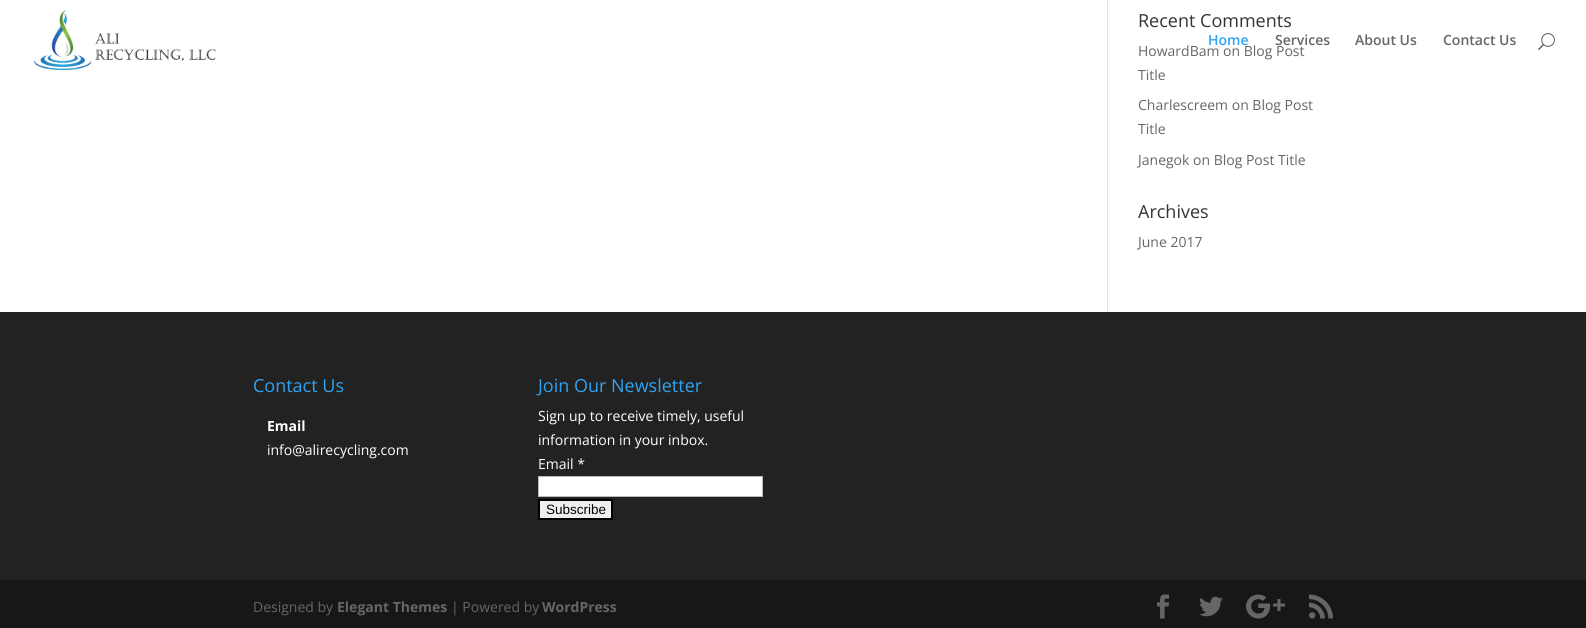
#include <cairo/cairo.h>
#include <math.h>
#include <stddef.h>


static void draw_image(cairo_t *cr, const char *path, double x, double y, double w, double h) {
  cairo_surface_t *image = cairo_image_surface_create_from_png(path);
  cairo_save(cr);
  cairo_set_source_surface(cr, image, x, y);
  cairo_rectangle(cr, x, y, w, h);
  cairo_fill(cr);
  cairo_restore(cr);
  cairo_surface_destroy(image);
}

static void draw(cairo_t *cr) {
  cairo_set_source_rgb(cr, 1, 1, 1);
  cairo_paint(cr);
  cairo_set_source_rgb(cr, 226 / 255.0, 226 / 255.0, 226 / 255.0);
  cairo_rectangle(cr, 1107, 0, 1, 312);
  cairo_fill(cr);
  cairo_set_source_rgb(cr, 34 / 255.0, 34 / 255.0, 34 / 255.0);
  cairo_rectangle(cr, 0, 312, 1586, 268);
  cairo_fill(cr);
  cairo_set_source_rgb(cr, 1, 1, 1);
  cairo_rectangle(cr, 538.5, 476.5, 224, 20);
  cairo_fill_preserve(cr);
  cairo_set_source_rgb(cr, 187 / 255.0, 187 / 255.0, 187 / 255.0);
  cairo_set_line_width(cr, 1);
  cairo_stroke(cr);
  cairo_set_source_rgb(cr, 239 / 255.0, 239 / 255.0, 239 / 255.0);
  cairo_rectangle(cr, 539, 500, 73, 19);
  cairo_fill_preserve(cr);
  cairo_set_source_rgb(cr, 0, 0, 0);
  cairo_set_line_width(cr, 2);
  cairo_stroke(cr);
  cairo_set_source_rgb(cr, 23 / 255.0, 23 / 255.0, 23 / 255.0);
  cairo_rectangle(cr, 0, 580, 1586, 48);
  cairo_fill(cr);
  draw_image(cr, "images/1.png", 1157, 594, 12, 25);
  draw_image(cr, "images/2.png", 1199, 596, 24, 21);
  draw_image(cr, "images/3.png", 1246, 594, 39, 25);
  draw_image(cr, "images/4.png", 1309, 594, 24, 25);
  draw_image(cr, "images/5.png", 34, 10, 182, 60);
  draw_image(cr, "images/6.png", 1538, 33, 17, 18);
  cairo_select_font_face(cr, "Open Sans", CAIRO_FONT_SLANT_NORMAL, CAIRO_FONT_WEIGHT_NORMAL);
  cairo_set_font_size(cr, 18);
  cairo_set_source_rgb(cr, 51 / 255.0, 51 / 255.0, 51 / 255.0);
  cairo_move_to(cr, 1138, 27);
  cairo_show_text(cr, "Recent Comments");
  cairo_set_font_size(cr, 14);
  cairo_set_source_rgb(cr, 102 / 255.0, 102 / 255.0, 102 / 255.0);
  cairo_move_to(cr, 1138, 56);
  cairo_show_text(cr, "HowardBam on Blog Post");
  cairo_move_to(cr, 1138, 80);
  cairo_show_text(cr, "Title");
  cairo_move_to(cr, 1138, 110);
  cairo_show_text(cr, "Charlescreem on Blog Post");
  cairo_move_to(cr, 1138, 134);
  cairo_show_text(cr, "Title");
  cairo_move_to(cr, 1138, 165);
  cairo_show_text(cr, "Janegok on Blog Post Title");
  cairo_set_font_size(cr, 18);
  cairo_set_source_rgb(cr, 51 / 255.0, 51 / 255.0, 51 / 255.0);
  cairo_move_to(cr, 1138, 218);
  cairo_show_text(cr, "Archives");
  cairo_set_font_size(cr, 14);
  cairo_set_source_rgb(cr, 102 / 255.0, 102 / 255.0, 102 / 255.0);
  cairo_move_to(cr, 1138, 247);
  cairo_show_text(cr, "June 2017");
  cairo_set_font_size(cr, 18);
  cairo_set_source_rgb(cr, 46 / 255.0, 163 / 255.0, 242 / 255.0);
  cairo_move_to(cr, 253, 392);
  cairo_show_text(cr, "Contact Us");
  cairo_select_font_face(cr, "Open Sans", CAIRO_FONT_SLANT_NORMAL, CAIRO_FONT_WEIGHT_BOLD);
  cairo_set_font_size(cr, 14);
  cairo_set_source_rgb(cr, 1, 1, 1);
  cairo_move_to(cr, 267, 431);
  cairo_show_text(cr, "Email");
  cairo_select_font_face(cr, "Open Sans", CAIRO_FONT_SLANT_NORMAL, CAIRO_FONT_WEIGHT_NORMAL);
  cairo_move_to(cr, 267, 455);
  cairo_show_text(cr, "info@alirecycling.com");
  cairo_set_font_size(cr, 18);
  cairo_set_source_rgb(cr, 46 / 255.0, 163 / 255.0, 242 / 255.0);
  cairo_move_to(cr, 538, 392);
  cairo_show_text(cr, "Join Our Newsletter");
  cairo_set_font_size(cr, 14);
  cairo_set_source_rgb(cr, 1, 1, 1);
  cairo_move_to(cr, 538, 421);
  cairo_show_text(cr, "Sign up to receive timely, useful");
  cairo_move_to(cr, 538, 445);
  cairo_show_text(cr, "information in your inbox.");
  cairo_move_to(cr, 538, 469);
  cairo_show_text(cr, "Email *");
  cairo_select_font_face(cr, "Liberation Sans", CAIRO_FONT_SLANT_NORMAL, CAIRO_FONT_WEIGHT_NORMAL);
  cairo_set_font_size(cr, 13.5);
  cairo_set_source_rgb(cr, 0, 0, 0);
  cairo_move_to(cr, 546, 514);
  cairo_show_text(cr, "Subscribe");
  cairo_select_font_face(cr, "Open Sans", CAIRO_FONT_SLANT_NORMAL, CAIRO_FONT_WEIGHT_NORMAL);
  cairo_set_font_size(cr, 14);
  cairo_set_source_rgb(cr, 102 / 255.0, 102 / 255.0, 102 / 255.0);
  cairo_move_to(cr, 253, 612);
  cairo_show_text(cr, "Designed by");
  cairo_select_font_face(cr, "Open Sans", CAIRO_FONT_SLANT_NORMAL, CAIRO_FONT_WEIGHT_BOLD);
  cairo_move_to(cr, 337, 612);
  cairo_show_text(cr, "Elegant Themes");
  cairo_select_font_face(cr, "Open Sans", CAIRO_FONT_SLANT_NORMAL, CAIRO_FONT_WEIGHT_NORMAL);
  cairo_move_to(cr, 451, 612);
  cairo_show_text(cr, "| Powered by");
  cairo_select_font_face(cr, "Open Sans", CAIRO_FONT_SLANT_NORMAL, CAIRO_FONT_WEIGHT_BOLD);
  cairo_move_to(cr, 542, 612);
  cairo_show_text(cr, "WordPress");
  cairo_select_font_face(cr, "Open Sans SemiBold", CAIRO_FONT_SLANT_NORMAL, CAIRO_FONT_WEIGHT_NORMAL);
  cairo_set_source_rgb(cr, 46 / 255.0, 163 / 255.0, 242 / 255.0);
  cairo_move_to(cr, 1208, 45);
  cairo_show_text(cr, "Home");
  cairo_set_source_rgb(cr, 102 / 255.0, 102 / 255.0, 102 / 255.0);
  cairo_move_to(cr, 1275, 45);
  cairo_show_text(cr, "Services");
  cairo_move_to(cr, 1355, 45);
  cairo_show_text(cr, "About Us");
  cairo_move_to(cr, 1443, 45);
  cairo_show_text(cr, "Contact Us");
}

int main(void) {
  cairo_surface_t *surface = cairo_image_surface_create(CAIRO_FORMAT_RGB24, 1586, 628);
  cairo_t *cr = cairo_create(surface);
  cairo_font_options_t *options = cairo_font_options_create();
  cairo_font_options_set_hint_metrics(options, CAIRO_HINT_METRICS_OFF);
  cairo_font_options_set_hint_style(options, CAIRO_HINT_STYLE_NONE);
  cairo_set_font_options(cr, options);
  cairo_set_miter_limit(cr, 4);
  draw(cr);
  cairo_surface_write_to_png(surface, "out.png");
  cairo_font_options_destroy(options);
  cairo_destroy(cr);
  cairo_surface_destroy(surface);
  return 0;
}
